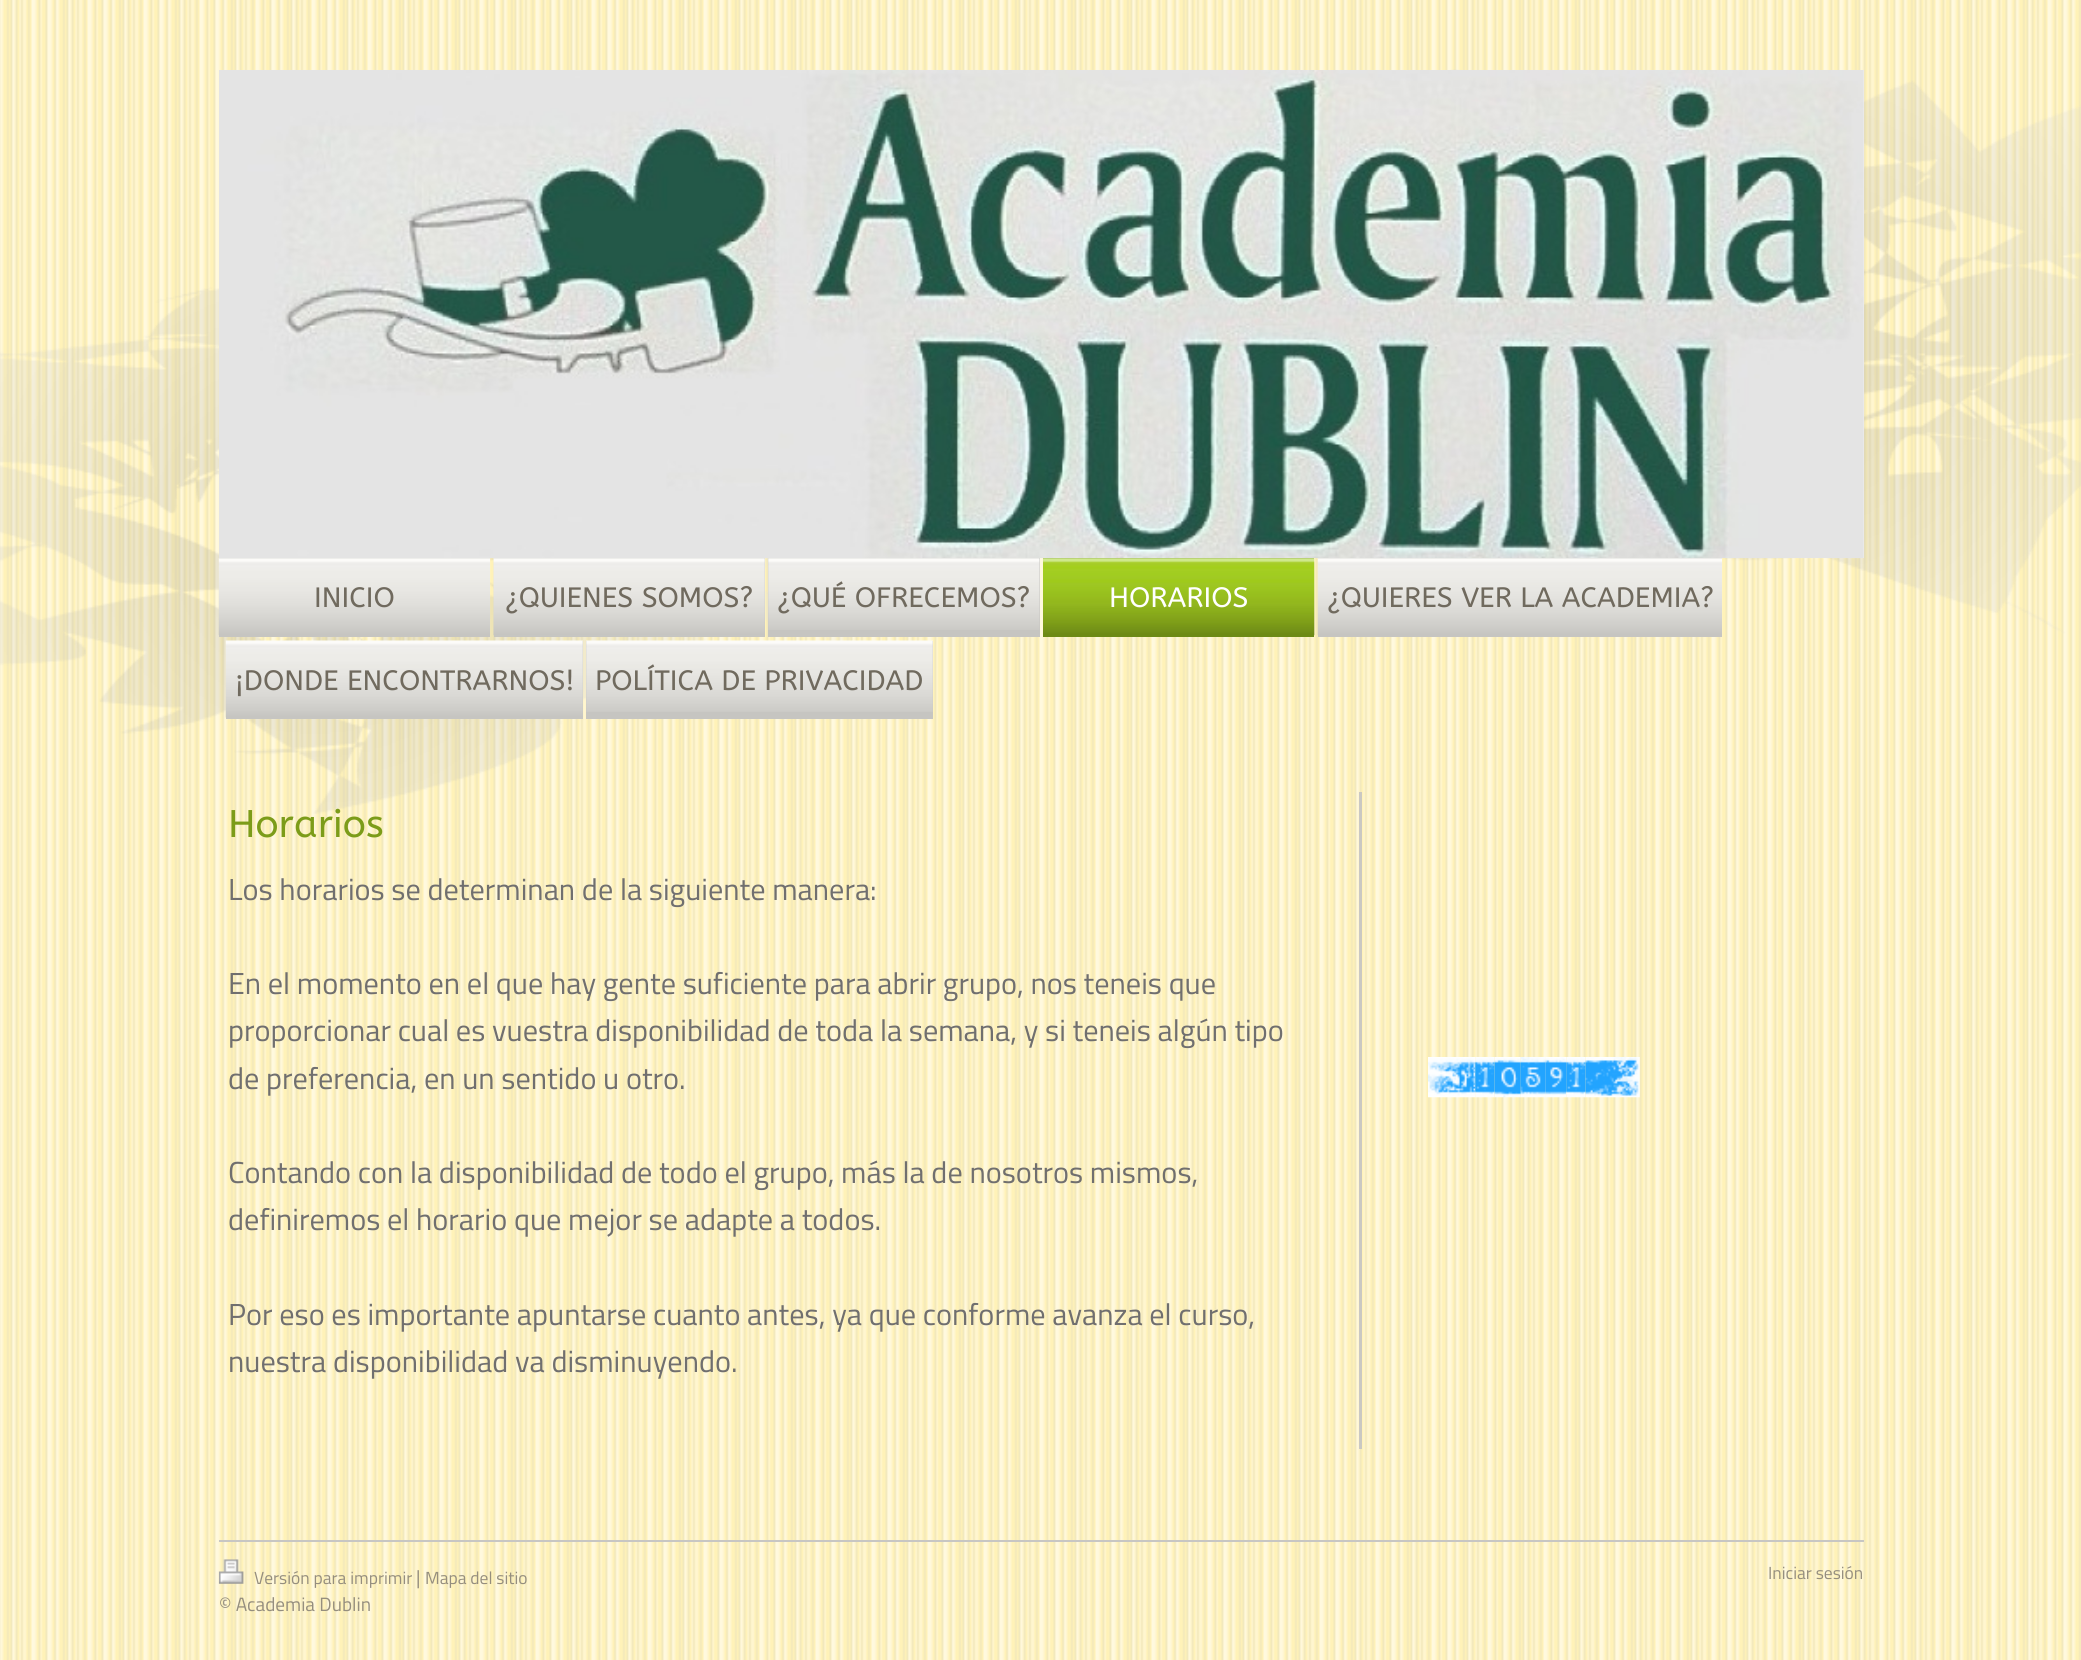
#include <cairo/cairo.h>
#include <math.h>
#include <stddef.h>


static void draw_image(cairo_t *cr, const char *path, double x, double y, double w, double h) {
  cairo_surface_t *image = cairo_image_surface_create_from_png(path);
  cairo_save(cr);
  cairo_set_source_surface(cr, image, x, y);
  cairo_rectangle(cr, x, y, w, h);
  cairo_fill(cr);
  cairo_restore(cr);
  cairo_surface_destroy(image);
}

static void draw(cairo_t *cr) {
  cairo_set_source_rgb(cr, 1, 1, 1);
  cairo_paint(cr);
  draw_image(cr, "images/1.png", 0, 0, 2081, 1660);
  draw_image(cr, "images/2.png", 0, 69, 2081, 745);
  cairo_set_source_rgb(cr, 238 / 255.0, 238 / 255.0, 238 / 255.0);
  cairo_rectangle(cr, 1863, 70, 1, 488);
  cairo_fill(cr);
  cairo_set_source_rgb(cr, 198 / 255.0, 197 / 255.0, 193 / 255.0);
  cairo_rectangle(cr, 219, 558, 271, 79);
  cairo_fill(cr);
  draw_image(cr, "images/4.png", 218, 558, 272, 77);
  cairo_rectangle(cr, 494, 558, 271, 79);
  cairo_fill(cr);
  draw_image(cr, "images/5.png", 493, 558, 272, 78);
  cairo_rectangle(cr, 768, 558, 272, 79);
  cairo_fill(cr);
  draw_image(cr, "images/6.png", 768, 558, 272, 72);
  draw_image(cr, "images/7.png", 1314, 558, 1, 77);
  cairo_set_source_rgb(cr, 109 / 255.0, 138 / 255.0, 22 / 255.0);
  cairo_rectangle(cr, 1043, 558, 271, 79);
  cairo_fill(cr);
  draw_image(cr, "images/8.png", 1043, 558, 272, 78);
  cairo_set_source_rgb(cr, 198 / 255.0, 197 / 255.0, 193 / 255.0);
  cairo_rectangle(cr, 1318, 558, 404, 79);
  cairo_fill(cr);
  draw_image(cr, "images/9.png", 1317, 558, 405, 77);
  draw_image(cr, "images/3.png", 219, 70, 1645, 489);
  cairo_rectangle(cr, 226, 641, 357, 78);
  cairo_fill(cr);
  draw_image(cr, "images/10.png", 225, 640, 358, 78);
  cairo_rectangle(cr, 586, 641, 347, 78);
  cairo_fill(cr);
  draw_image(cr, "images/11.png", 586, 640, 347, 72);
  cairo_set_source_rgba(cr, 199 / 255.0, 198 / 255.0, 195 / 255.0, 0.93);
  cairo_rectangle(cr, 1359, 792, 3, 657);
  cairo_fill(cr);
  draw_image(cr, "images/12.png", 1428, 1057, 48, 41);
  draw_image(cr, "images/13.png", 1475, 1057, 20, 41);
  draw_image(cr, "images/14.png", 1494, 1057, 27, 41);
  draw_image(cr, "images/15.png", 1520, 1057, 26, 41);
  draw_image(cr, "images/16.png", 1545, 1057, 22, 41);
  draw_image(cr, "images/17.png", 1566, 1057, 20, 41);
  draw_image(cr, "images/18.png", 1585, 1057, 55, 41);
  cairo_set_source_rgb(cr, 199 / 255.0, 198 / 255.0, 195 / 255.0);
  cairo_rectangle(cr, 219, 1540, 1645, 2);
  cairo_fill(cr);
  draw_image(cr, "images/19.png", 218, 1559, 26, 25);
  cairo_select_font_face(cr, "ABeeZee", CAIRO_FONT_SLANT_NORMAL, CAIRO_FONT_WEIGHT_NORMAL);
  cairo_set_font_size(cr, 28);
  cairo_set_source_rgb(cr, 112 / 255.0, 106 / 255.0, 94 / 255.0);
  cairo_move_to(cr, 314, 607);
  cairo_show_text(cr, "INICIO");
  cairo_move_to(cr, 505, 607);
  cairo_show_text(cr, "¿QUIENES SOMOS?");
  cairo_move_to(cr, 777, 607);
  cairo_show_text(cr, "¿QUÉ OFRECEMOS?");
  cairo_set_source_rgb(cr, 1, 1, 1);
  cairo_move_to(cr, 1109, 607);
  cairo_show_text(cr, "HORARIOS");
  cairo_set_source_rgb(cr, 112 / 255.0, 106 / 255.0, 94 / 255.0);
  cairo_move_to(cr, 1327, 607);
  cairo_show_text(cr, "¿QUIERES VER LA ACADEMIA?");
  cairo_move_to(cr, 235, 690);
  cairo_show_text(cr, "¡DONDE ENCONTRARNOS!");
  cairo_move_to(cr, 595, 690);
  cairo_show_text(cr, "POLÍTICA DE PRIVACIDAD");
  cairo_set_font_size(cr, 38.5);
  cairo_set_source_rgb(cr, 124 / 255.0, 156 / 255.0, 25 / 255.0);
  cairo_move_to(cr, 228, 837);
  cairo_show_text(cr, "Horarios");
  cairo_select_font_face(cr, "Titillium Web", CAIRO_FONT_SLANT_NORMAL, CAIRO_FONT_WEIGHT_NORMAL);
  cairo_set_font_size(cr, 30.35);
  cairo_set_source_rgb(cr, 112 / 255.0, 111 / 255.0, 111 / 255.0);
  cairo_move_to(cr, 228, 900);
  cairo_show_text(cr, "Los horarios se determinan de la siguiente manera:");
  cairo_move_to(cr, 228, 994);
  cairo_show_text(cr, "En el momento en el que hay gente suficiente para abrir grupo, nos teneis que");
  cairo_move_to(cr, 228, 1041);
  cairo_show_text(cr, "proporcionar cual es vuestra disponibilidad de toda la semana, y si teneis algún tipo");
  cairo_move_to(cr, 228, 1089);
  cairo_show_text(cr, "de preferencia, en un sentido u otro.");
  cairo_move_to(cr, 228, 1183);
  cairo_show_text(cr, "Contando con la disponibilidad de todo el grupo, más la de nosotros mismos,");
  cairo_move_to(cr, 228, 1230);
  cairo_show_text(cr, "definiremos el horario que mejor se adapte a todos.");
  cairo_move_to(cr, 228, 1325);
  cairo_show_text(cr, "Por eso es importante apuntarse cuanto antes, ya que conforme avanza el curso,");
  cairo_move_to(cr, 228, 1372);
  cairo_show_text(cr, "nuestra disponibilidad va disminuyendo.");
  cairo_set_font_size(cr, 17.5);
  cairo_set_source_rgb(cr, 149 / 255.0, 142 / 255.0, 126 / 255.0);
  cairo_move_to(cr, 254, 1584);
  cairo_show_text(cr, "Versión para imprimir");
  cairo_set_font_size(cr, 19.25);
  cairo_move_to(cr, 416, 1584);
  cairo_show_text(cr, "|");
  cairo_set_font_size(cr, 17.5);
  cairo_move_to(cr, 425, 1584);
  cairo_show_text(cr, "Mapa del sitio");
  cairo_set_font_size(cr, 19.25);
  cairo_move_to(cr, 219, 1611);
  cairo_show_text(cr, "© Academia Dublin");
  cairo_set_font_size(cr, 17.5);
  cairo_move_to(cr, 1768, 1579);
  cairo_show_text(cr, "Iniciar sesión");
}

int main(void) {
  cairo_surface_t *surface = cairo_image_surface_create(CAIRO_FORMAT_RGB24, 2081, 1660);
  cairo_t *cr = cairo_create(surface);
  cairo_font_options_t *options = cairo_font_options_create();
  cairo_font_options_set_hint_metrics(options, CAIRO_HINT_METRICS_OFF);
  cairo_font_options_set_hint_style(options, CAIRO_HINT_STYLE_NONE);
  cairo_set_font_options(cr, options);
  cairo_set_miter_limit(cr, 4);
  draw(cr);
  cairo_surface_write_to_png(surface, "out.png");
  cairo_font_options_destroy(options);
  cairo_destroy(cr);
  cairo_surface_destroy(surface);
  return 0;
}
